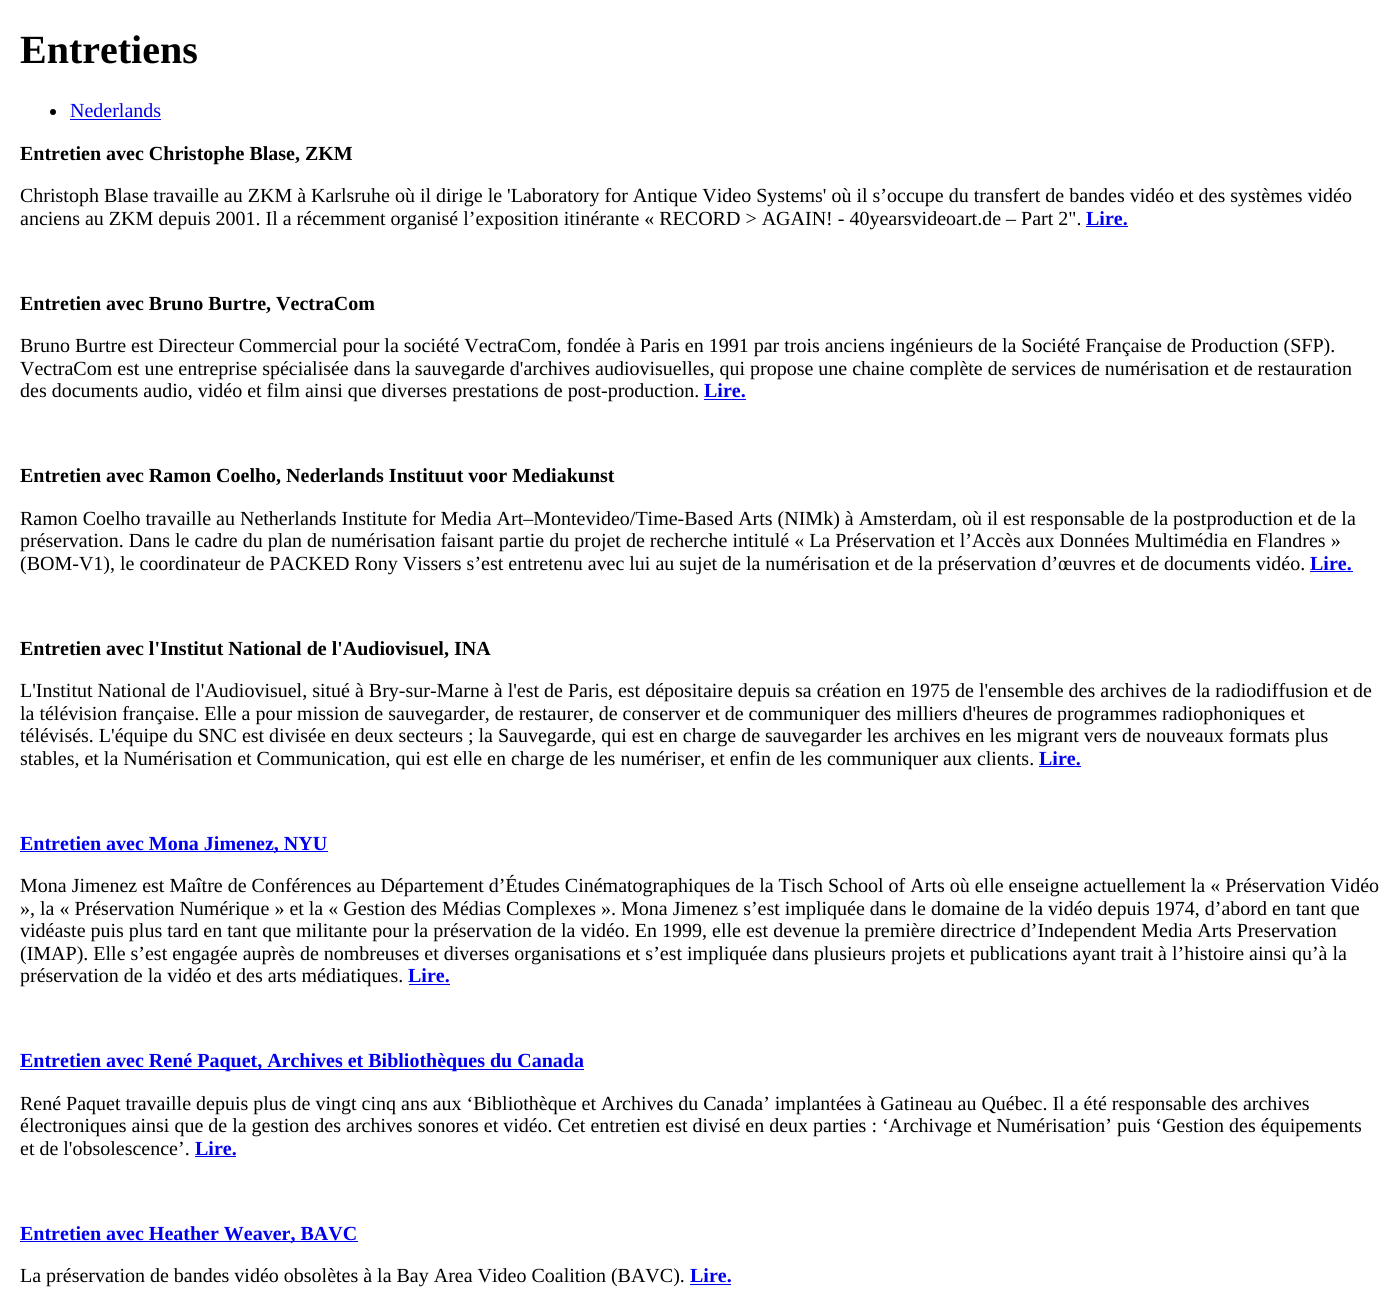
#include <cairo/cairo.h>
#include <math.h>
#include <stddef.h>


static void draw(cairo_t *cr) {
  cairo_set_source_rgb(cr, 1, 1, 1);
  cairo_paint(cr);
  cairo_set_source_rgb(cr, 0, 0, 0);
  cairo_arc(cr, 53, 112, 3, 0, 2 * M_PI);
  cairo_fill(cr);
  cairo_set_source_rgb(cr, 0, 0, 238 / 255.0);
  cairo_rectangle(cr, 70, 119, 91, 1);
  cairo_fill(cr);
  cairo_rectangle(cr, 1086, 226, 42, 1);
  cairo_fill(cr);
  cairo_rectangle(cr, 704, 399, 42, 1);
  cairo_fill(cr);
  cairo_rectangle(cr, 1310, 571, 43, 1);
  cairo_fill(cr);
  cairo_rectangle(cr, 1039, 766, 42, 1);
  cairo_fill(cr);
  cairo_rectangle(cr, 20, 851, 308, 1);
  cairo_fill(cr);
  cairo_rectangle(cr, 409, 984, 41, 1);
  cairo_fill(cr);
  cairo_rectangle(cr, 20, 1069, 564, 1);
  cairo_fill(cr);
  cairo_rectangle(cr, 195, 1156, 41, 1);
  cairo_fill(cr);
  cairo_rectangle(cr, 20, 1241, 338, 1);
  cairo_fill(cr);
  cairo_rectangle(cr, 690, 1284, 41, 1);
  cairo_fill(cr);
  cairo_select_font_face(cr, "Liberation Serif", CAIRO_FONT_SLANT_NORMAL, CAIRO_FONT_WEIGHT_BOLD);
  cairo_set_font_size(cr, 40);
  cairo_set_source_rgb(cr, 0, 0, 0);
  cairo_move_to(cr, 20, 63);
  cairo_show_text(cr, "Entretiens");
  cairo_select_font_face(cr, "Liberation Serif", CAIRO_FONT_SLANT_NORMAL, CAIRO_FONT_WEIGHT_NORMAL);
  cairo_set_font_size(cr, 20);
  cairo_set_source_rgb(cr, 0, 0, 238 / 255.0);
  cairo_move_to(cr, 70, 117);
  cairo_show_text(cr, "Nederlands");
  cairo_select_font_face(cr, "Liberation Serif", CAIRO_FONT_SLANT_NORMAL, CAIRO_FONT_WEIGHT_BOLD);
  cairo_set_source_rgb(cr, 0, 0, 0);
  cairo_move_to(cr, 20, 160);
  cairo_show_text(cr, "Entretien avec Christophe Blase, ZKM");
  cairo_select_font_face(cr, "Liberation Serif", CAIRO_FONT_SLANT_NORMAL, CAIRO_FONT_WEIGHT_NORMAL);
  cairo_move_to(cr, 20, 202);
  cairo_show_text(cr, "Christoph Blase travaille au ZKM à Karlsruhe où il dirige le 'Laboratory for Antique Video Systems' où il s’occupe du transfert de bandes vidéo et des systèmes vidéo");
  cairo_move_to(cr, 20, 225);
  cairo_show_text(cr, "anciens au ZKM depuis 2001. Il a récemment organisé l’exposition itinérante « RECORD > AGAIN! - 40yearsvideoart.de – Part 2\".");
  cairo_select_font_face(cr, "Liberation Serif", CAIRO_FONT_SLANT_NORMAL, CAIRO_FONT_WEIGHT_BOLD);
  cairo_set_source_rgb(cr, 0, 0, 238 / 255.0);
  cairo_move_to(cr, 1086, 225);
  cairo_show_text(cr, "Lire.");
  cairo_set_source_rgb(cr, 0, 0, 0);
  cairo_move_to(cr, 20, 310);
  cairo_show_text(cr, "Entretien avec Bruno Burtre, VectraCom");
  cairo_select_font_face(cr, "Liberation Serif", CAIRO_FONT_SLANT_NORMAL, CAIRO_FONT_WEIGHT_NORMAL);
  cairo_move_to(cr, 20, 352);
  cairo_show_text(cr, "Bruno Burtre est Directeur Commercial pour la société VectraCom, fondée à Paris en 1991 par trois anciens ingénieurs de la Société Française de Production (SFP).");
  cairo_move_to(cr, 20, 375);
  cairo_show_text(cr, "VectraCom est une entreprise spécialisée dans la sauvegarde d'archives audiovisuelles, qui propose une chaine complète de services de numérisation et de restauration");
  cairo_move_to(cr, 20, 397);
  cairo_show_text(cr, "des documents audio, vidéo et film ainsi que diverses prestations de post-production.");
  cairo_select_font_face(cr, "Liberation Serif", CAIRO_FONT_SLANT_NORMAL, CAIRO_FONT_WEIGHT_BOLD);
  cairo_set_source_rgb(cr, 0, 0, 238 / 255.0);
  cairo_move_to(cr, 704, 397);
  cairo_show_text(cr, "Lire.");
  cairo_set_source_rgb(cr, 0, 0, 0);
  cairo_move_to(cr, 20, 482);
  cairo_show_text(cr, "Entretien avec Ramon Coelho, Nederlands Instituut voor Mediakunst");
  cairo_select_font_face(cr, "Liberation Serif", CAIRO_FONT_SLANT_NORMAL, CAIRO_FONT_WEIGHT_NORMAL);
  cairo_move_to(cr, 20, 525);
  cairo_show_text(cr, "Ramon Coelho travaille au Netherlands Institute for Media Art–Montevideo/Time-Based Arts (NIMk) à Amsterdam, où il est responsable de la postproduction et de la");
  cairo_move_to(cr, 20, 547);
  cairo_show_text(cr, "préservation. Dans le cadre du plan de numérisation faisant partie du projet de recherche intitulé « La Préservation et l’Accès aux Données Multimédia en Flandres »");
  cairo_move_to(cr, 20, 570);
  cairo_show_text(cr, "(BOM-V1), le coordinateur de PACKED Rony Vissers s’est entretenu avec lui au sujet de la numérisation et de la préservation d’œuvres et de documents vidéo.");
  cairo_select_font_face(cr, "Liberation Serif", CAIRO_FONT_SLANT_NORMAL, CAIRO_FONT_WEIGHT_BOLD);
  cairo_set_source_rgb(cr, 0, 0, 238 / 255.0);
  cairo_move_to(cr, 1310, 570);
  cairo_show_text(cr, "Lire.");
  cairo_set_source_rgb(cr, 0, 0, 0);
  cairo_move_to(cr, 20, 655);
  cairo_show_text(cr, "Entretien avec l'Institut National de l'Audiovisuel, INA");
  cairo_select_font_face(cr, "Liberation Serif", CAIRO_FONT_SLANT_NORMAL, CAIRO_FONT_WEIGHT_NORMAL);
  cairo_move_to(cr, 20, 697);
  cairo_show_text(cr, "L'Institut National de l'Audiovisuel, situé à Bry-sur-Marne à l'est de Paris, est dépositaire depuis sa création en 1975 de l'ensemble des archives de la radiodiffusion et de");
  cairo_move_to(cr, 20, 720);
  cairo_show_text(cr, "la télévision française. Elle a pour mission de sauvegarder, de restaurer, de conserver et de communiquer des milliers d'heures de programmes radiophoniques et");
  cairo_move_to(cr, 20, 742);
  cairo_show_text(cr, "télévisés. L'équipe du SNC est divisée en deux secteurs ; la Sauvegarde, qui est en charge de sauvegarder les archives en les migrant vers de nouveaux formats plus");
  cairo_move_to(cr, 20, 765);
  cairo_show_text(cr, "stables, et la Numérisation et Communication, qui est elle en charge de les numériser, et enfin de les communiquer aux clients.");
  cairo_select_font_face(cr, "Liberation Serif", CAIRO_FONT_SLANT_NORMAL, CAIRO_FONT_WEIGHT_BOLD);
  cairo_set_source_rgb(cr, 0, 0, 238 / 255.0);
  cairo_move_to(cr, 1039, 765);
  cairo_show_text(cr, "Lire.");
  cairo_move_to(cr, 20, 850);
  cairo_show_text(cr, "Entretien avec Mona Jimenez, NYU");
  cairo_select_font_face(cr, "Liberation Serif", CAIRO_FONT_SLANT_NORMAL, CAIRO_FONT_WEIGHT_NORMAL);
  cairo_set_source_rgb(cr, 0, 0, 0);
  cairo_move_to(cr, 20, 892);
  cairo_show_text(cr, "Mona Jimenez est Maître de Conférences au Département d’Études Cinématographiques de la Tisch School of Arts où elle enseigne actuellement la « Préservation Vidéo");
  cairo_move_to(cr, 20, 915);
  cairo_show_text(cr, "», la « Préservation Numérique » et la « Gestion des Médias Complexes ». Mona Jimenez s’est impliquée dans le domaine de la vidéo depuis 1974, d’abord en tant que");
  cairo_move_to(cr, 20, 937);
  cairo_show_text(cr, "vidéaste puis plus tard en tant que militante pour la préservation de la vidéo. En 1999, elle est devenue la première directrice d’Independent Media Arts Preservation");
  cairo_move_to(cr, 20, 960);
  cairo_show_text(cr, "(IMAP). Elle s’est engagée auprès de nombreuses et diverses organisations et s’est impliquée dans plusieurs projets et publications ayant trait à l’histoire ainsi qu’à la");
  cairo_move_to(cr, 20, 982);
  cairo_show_text(cr, "préservation de la vidéo et des arts médiatiques.");
  cairo_select_font_face(cr, "Liberation Serif", CAIRO_FONT_SLANT_NORMAL, CAIRO_FONT_WEIGHT_BOLD);
  cairo_set_source_rgb(cr, 0, 0, 238 / 255.0);
  cairo_move_to(cr, 408, 982);
  cairo_show_text(cr, "Lire.");
  cairo_move_to(cr, 20, 1067);
  cairo_show_text(cr, "Entretien avec René Paquet, Archives et Bibliothèques du Canada");
  cairo_select_font_face(cr, "Liberation Serif", CAIRO_FONT_SLANT_NORMAL, CAIRO_FONT_WEIGHT_NORMAL);
  cairo_set_source_rgb(cr, 0, 0, 0);
  cairo_move_to(cr, 20, 1110);
  cairo_show_text(cr, "René Paquet travaille depuis plus de vingt cinq ans aux ‘Bibliothèque et Archives du Canada’ implantées à Gatineau au Québec. Il a été responsable des archives");
  cairo_move_to(cr, 20, 1132);
  cairo_show_text(cr, "électroniques ainsi que de la gestion des archives sonores et vidéo. Cet entretien est divisé en deux parties : ‘Archivage et Numérisation’ puis ‘Gestion des équipements");
  cairo_move_to(cr, 20, 1155);
  cairo_show_text(cr, "et de l'obsolescence’.");
  cairo_select_font_face(cr, "Liberation Serif", CAIRO_FONT_SLANT_NORMAL, CAIRO_FONT_WEIGHT_BOLD);
  cairo_set_source_rgb(cr, 0, 0, 238 / 255.0);
  cairo_move_to(cr, 195, 1155);
  cairo_show_text(cr, "Lire.");
  cairo_move_to(cr, 20, 1240);
  cairo_show_text(cr, "Entretien avec Heather Weaver, BAVC");
  cairo_select_font_face(cr, "Liberation Serif", CAIRO_FONT_SLANT_NORMAL, CAIRO_FONT_WEIGHT_NORMAL);
  cairo_set_source_rgb(cr, 0, 0, 0);
  cairo_move_to(cr, 20, 1282);
  cairo_show_text(cr, "La préservation de bandes vidéo obsolètes à la Bay Area Video Coalition (BAVC).");
  cairo_select_font_face(cr, "Liberation Serif", CAIRO_FONT_SLANT_NORMAL, CAIRO_FONT_WEIGHT_BOLD);
  cairo_set_source_rgb(cr, 0, 0, 238 / 255.0);
  cairo_move_to(cr, 690, 1282);
  cairo_show_text(cr, "Lire.");
}

int main(void) {
  cairo_surface_t *surface = cairo_image_surface_create(CAIRO_FORMAT_RGB24, 1400, 1309);
  cairo_t *cr = cairo_create(surface);
  cairo_font_options_t *options = cairo_font_options_create();
  cairo_font_options_set_hint_metrics(options, CAIRO_HINT_METRICS_OFF);
  cairo_font_options_set_hint_style(options, CAIRO_HINT_STYLE_NONE);
  cairo_set_font_options(cr, options);
  cairo_set_miter_limit(cr, 4);
  draw(cr);
  cairo_surface_write_to_png(surface, "out.png");
  cairo_font_options_destroy(options);
  cairo_destroy(cr);
  cairo_surface_destroy(surface);
  return 0;
}
